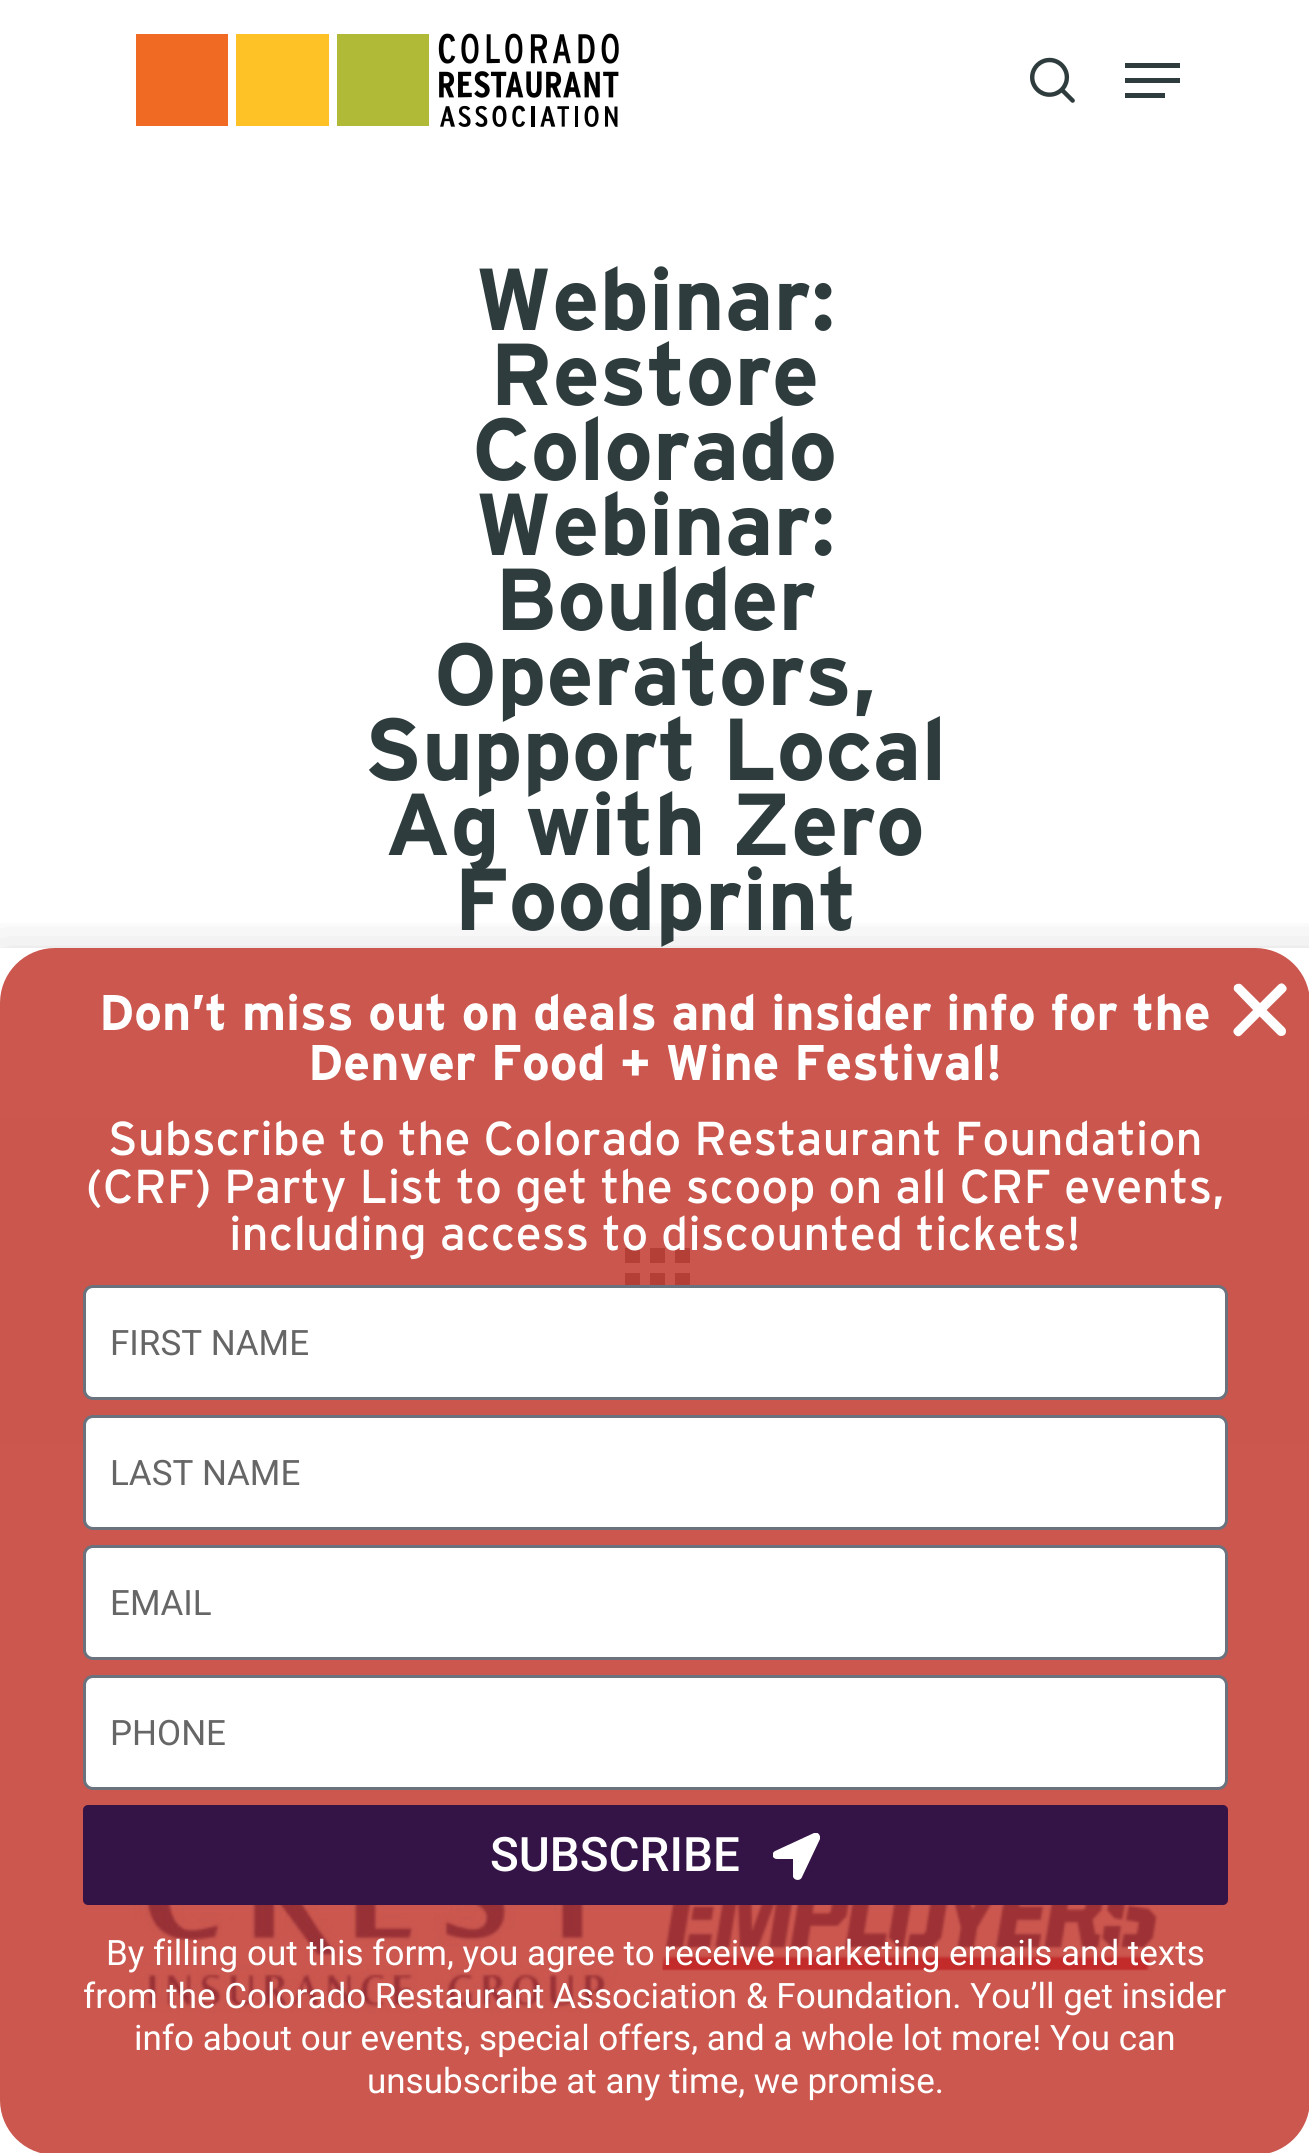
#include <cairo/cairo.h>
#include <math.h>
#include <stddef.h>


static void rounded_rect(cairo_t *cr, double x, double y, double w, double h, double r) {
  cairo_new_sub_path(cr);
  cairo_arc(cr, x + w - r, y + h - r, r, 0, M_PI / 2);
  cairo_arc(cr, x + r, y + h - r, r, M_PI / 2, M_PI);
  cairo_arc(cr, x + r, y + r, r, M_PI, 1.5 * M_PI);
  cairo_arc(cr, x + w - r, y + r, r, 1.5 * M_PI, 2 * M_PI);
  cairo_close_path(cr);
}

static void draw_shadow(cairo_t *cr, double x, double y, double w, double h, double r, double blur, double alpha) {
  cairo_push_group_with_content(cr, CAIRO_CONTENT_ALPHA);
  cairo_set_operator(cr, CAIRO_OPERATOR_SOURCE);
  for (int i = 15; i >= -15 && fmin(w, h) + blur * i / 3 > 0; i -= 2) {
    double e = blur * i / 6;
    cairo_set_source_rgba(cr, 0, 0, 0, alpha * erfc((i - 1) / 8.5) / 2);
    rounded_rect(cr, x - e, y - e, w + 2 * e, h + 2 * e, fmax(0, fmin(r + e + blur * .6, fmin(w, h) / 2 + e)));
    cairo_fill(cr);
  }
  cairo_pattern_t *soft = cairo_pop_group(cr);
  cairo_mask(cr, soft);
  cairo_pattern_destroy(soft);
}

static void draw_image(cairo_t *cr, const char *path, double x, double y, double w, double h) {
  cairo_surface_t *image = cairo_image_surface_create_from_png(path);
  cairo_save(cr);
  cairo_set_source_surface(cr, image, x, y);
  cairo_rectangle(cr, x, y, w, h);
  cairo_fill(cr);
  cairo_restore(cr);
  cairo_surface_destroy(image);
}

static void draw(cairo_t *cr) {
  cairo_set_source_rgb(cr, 1, 1, 1);
  cairo_paint(cr);
  draw_image(cr, "images/1.png", 136, 33, 483, 94);
  draw_image(cr, "images/2.png", 1030, 57, 45, 46);
  cairo_set_source_rgb(cr, 47 / 255.0, 60 / 255.0, 61 / 255.0);
  cairo_rectangle(cr, 1125, 63, 55, 5);
  cairo_fill(cr);
  cairo_rectangle(cr, 1125, 93, 40, 5);
  cairo_fill(cr);
  cairo_rectangle(cr, 1125, 78, 55, 5);
  cairo_fill(cr);
  cairo_set_source_rgb(cr, 248 / 255.0, 248 / 255.0, 248 / 255.0);
  cairo_rectangle(cr, 0, 1118, 1309, 325);
  cairo_fill(cr);
  cairo_set_source_rgb(cr, 136 / 255.0, 136 / 255.0, 136 / 255.0);
  cairo_rectangle(cr, 625, 1248, 15, 15);
  cairo_fill(cr);
  cairo_rectangle(cr, 650, 1248, 15, 15);
  cairo_fill(cr);
  cairo_rectangle(cr, 675, 1248, 15, 15);
  cairo_fill(cr);
  cairo_rectangle(cr, 675, 1273, 15, 12);
  cairo_fill(cr);
  cairo_rectangle(cr, 625, 1273, 15, 12);
  cairo_fill(cr);
  cairo_rectangle(cr, 650, 1273, 15, 12);
  cairo_fill(cr);
  draw_image(cr, "images/3.png", 134, 1905, 483, 109);
  draw_image(cr, "images/4.png", 662, 1905, 497, 66);
  cairo_save(cr);
  cairo_rectangle(cr, 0, 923, 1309, 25);
  cairo_clip(cr);
  cairo_set_source_rgb(cr, 0, 0, 0);
  draw_shadow(cr, -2, 960, 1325, 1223, 0, 29, 0.2);
  cairo_restore(cr);
  cairo_set_source_rgba(cr, 190 / 255.0, 45 / 255.0, 36 / 255.0, 0.8);
  rounded_rect(cr, 0, 948, 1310, 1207, 55);
  cairo_fill(cr);
  cairo_set_source_rgb(cr, 1, 1, 1);
  rounded_rect(cr, 84.5, 1286.5, 1142, 112, 8.5);
  cairo_fill_preserve(cr);
  cairo_set_source_rgb(cr, 105 / 255.0, 114 / 255.0, 125 / 255.0);
  cairo_set_line_width(cr, 3);
  cairo_stroke(cr);
  cairo_set_source_rgb(cr, 1, 1, 1);
  rounded_rect(cr, 84.5, 1416.5, 1142, 112, 8.5);
  cairo_fill_preserve(cr);
  cairo_set_source_rgb(cr, 105 / 255.0, 114 / 255.0, 125 / 255.0);
  cairo_stroke(cr);
  cairo_set_source_rgb(cr, 1, 1, 1);
  rounded_rect(cr, 84.5, 1546.5, 1142, 112, 8.5);
  cairo_fill_preserve(cr);
  cairo_set_source_rgb(cr, 105 / 255.0, 114 / 255.0, 125 / 255.0);
  cairo_stroke(cr);
  cairo_set_source_rgb(cr, 1, 1, 1);
  rounded_rect(cr, 84.5, 1676.5, 1142, 112, 8.5);
  cairo_fill_preserve(cr);
  cairo_set_source_rgb(cr, 105 / 255.0, 114 / 255.0, 125 / 255.0);
  cairo_stroke(cr);
  cairo_set_source_rgb(cr, 52 / 255.0, 19 / 255.0, 70 / 255.0);
  rounded_rect(cr, 83, 1805, 1145, 100, 5);
  cairo_fill(cr);
  cairo_save(cr);
  cairo_rectangle(cr, 773, 1833, 47, 47);
  cairo_clip(cr);
  cairo_set_source_rgb(cr, 1, 1, 1);
  cairo_new_path(cr);
  cairo_move_to(cr, 814, 1833);
  cairo_line_to(cr, 775, 1851);
  cairo_curve_to(cr, 771, 1853, 772, 1859, 777, 1859);
  cairo_line_to(cr, 793, 1859);
  cairo_line_to(cr, 793, 1876);
  cairo_curve_to(cr, 793, 1880, 800, 1882, 802, 1877);
  cairo_line_to(cr, 820, 1839);
  cairo_curve_to(cr, 821, 1835, 817, 1831, 814, 1833);
  cairo_close_path(cr);
  cairo_fill(cr);
  cairo_restore(cr);
  draw_image(cr, "images/5.png", 1233, 983, 54, 54);
  cairo_select_font_face(cr, "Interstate", CAIRO_FONT_SLANT_NORMAL, CAIRO_FONT_WEIGHT_BOLD);
  cairo_set_font_size(cr, 87.75);
  cairo_set_source_rgb(cr, 47 / 255.0, 60 / 255.0, 61 / 255.0);
  cairo_move_to(cr, 475, 330);
  cairo_show_text(cr, "Webinar:");
  cairo_move_to(cr, 490, 405);
  cairo_show_text(cr, "Restore");
  cairo_move_to(cr, 472, 480);
  cairo_show_text(cr, "Colorado");
  cairo_move_to(cr, 475, 555);
  cairo_show_text(cr, "Webinar:");
  cairo_move_to(cr, 495, 630);
  cairo_show_text(cr, "Boulder");
  cairo_move_to(cr, 434, 705);
  cairo_show_text(cr, "Operators,");
  cairo_move_to(cr, 364, 780);
  cairo_show_text(cr, "Support Local");
  cairo_move_to(cr, 385, 855);
  cairo_show_text(cr, "Ag with Zero");
  cairo_move_to(cr, 454, 930);
  cairo_show_text(cr, "Foodprint");
  cairo_set_font_size(cr, 50);
  cairo_set_source_rgb(cr, 1, 1, 1);
  cairo_move_to(cr, 99, 1030);
  cairo_show_text(cr, "Don’t miss out on deals and insider info for the");
  cairo_move_to(cr, 308, 1080);
  cairo_show_text(cr, "Denver Food + Wine Festival!");
  cairo_select_font_face(cr, "Interstate", CAIRO_FONT_SLANT_NORMAL, CAIRO_FONT_WEIGHT_NORMAL);
  cairo_set_font_size(cr, 47.5);
  cairo_move_to(cr, 108, 1155);
  cairo_show_text(cr, "Subscribe to the Colorado Restaurant Foundation");
  cairo_move_to(cr, 86, 1203);
  cairo_show_text(cr, "(CRF) Party List to get the scoop on all CRF events,");
  cairo_move_to(cr, 229, 1250);
  cairo_show_text(cr, "including access to discounted tickets!");
  cairo_select_font_face(cr, "Roboto", CAIRO_FONT_SLANT_NORMAL, CAIRO_FONT_WEIGHT_NORMAL);
  cairo_set_font_size(cr, 35);
  cairo_set_source_rgb(cr, 102 / 255.0, 102 / 255.0, 102 / 255.0);
  cairo_move_to(cr, 110, 1355);
  cairo_show_text(cr, "FIRST NAME");
  cairo_move_to(cr, 110, 1485);
  cairo_show_text(cr, "LAST NAME");
  cairo_move_to(cr, 110, 1615);
  cairo_show_text(cr, "EMAIL");
  cairo_move_to(cr, 110, 1745);
  cairo_show_text(cr, "PHONE");
  cairo_select_font_face(cr, "Roboto Medium", CAIRO_FONT_SLANT_NORMAL, CAIRO_FONT_WEIGHT_NORMAL);
  cairo_set_font_size(cr, 47.5);
  cairo_set_source_rgb(cr, 1, 1, 1);
  cairo_move_to(cr, 490, 1871);
  cairo_show_text(cr, "SUBSCRIBE");
  cairo_select_font_face(cr, "Roboto", CAIRO_FONT_SLANT_NORMAL, CAIRO_FONT_WEIGHT_NORMAL);
  cairo_set_font_size(cr, 35);
  cairo_move_to(cr, 106, 1965);
  cairo_show_text(cr, "By filling out this form, you agree to receive marketing emails and texts");
  cairo_move_to(cr, 83, 2008);
  cairo_show_text(cr, "from the Colorado Restaurant Association & Foundation. You’ll get insider");
  cairo_move_to(cr, 134, 2050);
  cairo_show_text(cr, "info about our events, special offers, and a whole lot more! You can");
  cairo_move_to(cr, 367, 2093);
  cairo_show_text(cr, "unsubscribe at any time, we promise.");
}

int main(void) {
  cairo_surface_t *surface = cairo_image_surface_create(CAIRO_FORMAT_RGB24, 1309, 2153);
  cairo_t *cr = cairo_create(surface);
  cairo_font_options_t *options = cairo_font_options_create();
  cairo_font_options_set_hint_metrics(options, CAIRO_HINT_METRICS_OFF);
  cairo_font_options_set_hint_style(options, CAIRO_HINT_STYLE_NONE);
  cairo_set_font_options(cr, options);
  cairo_set_miter_limit(cr, 4);
  draw(cr);
  cairo_surface_write_to_png(surface, "out.png");
  cairo_font_options_destroy(options);
  cairo_destroy(cr);
  cairo_surface_destroy(surface);
  return 0;
}
